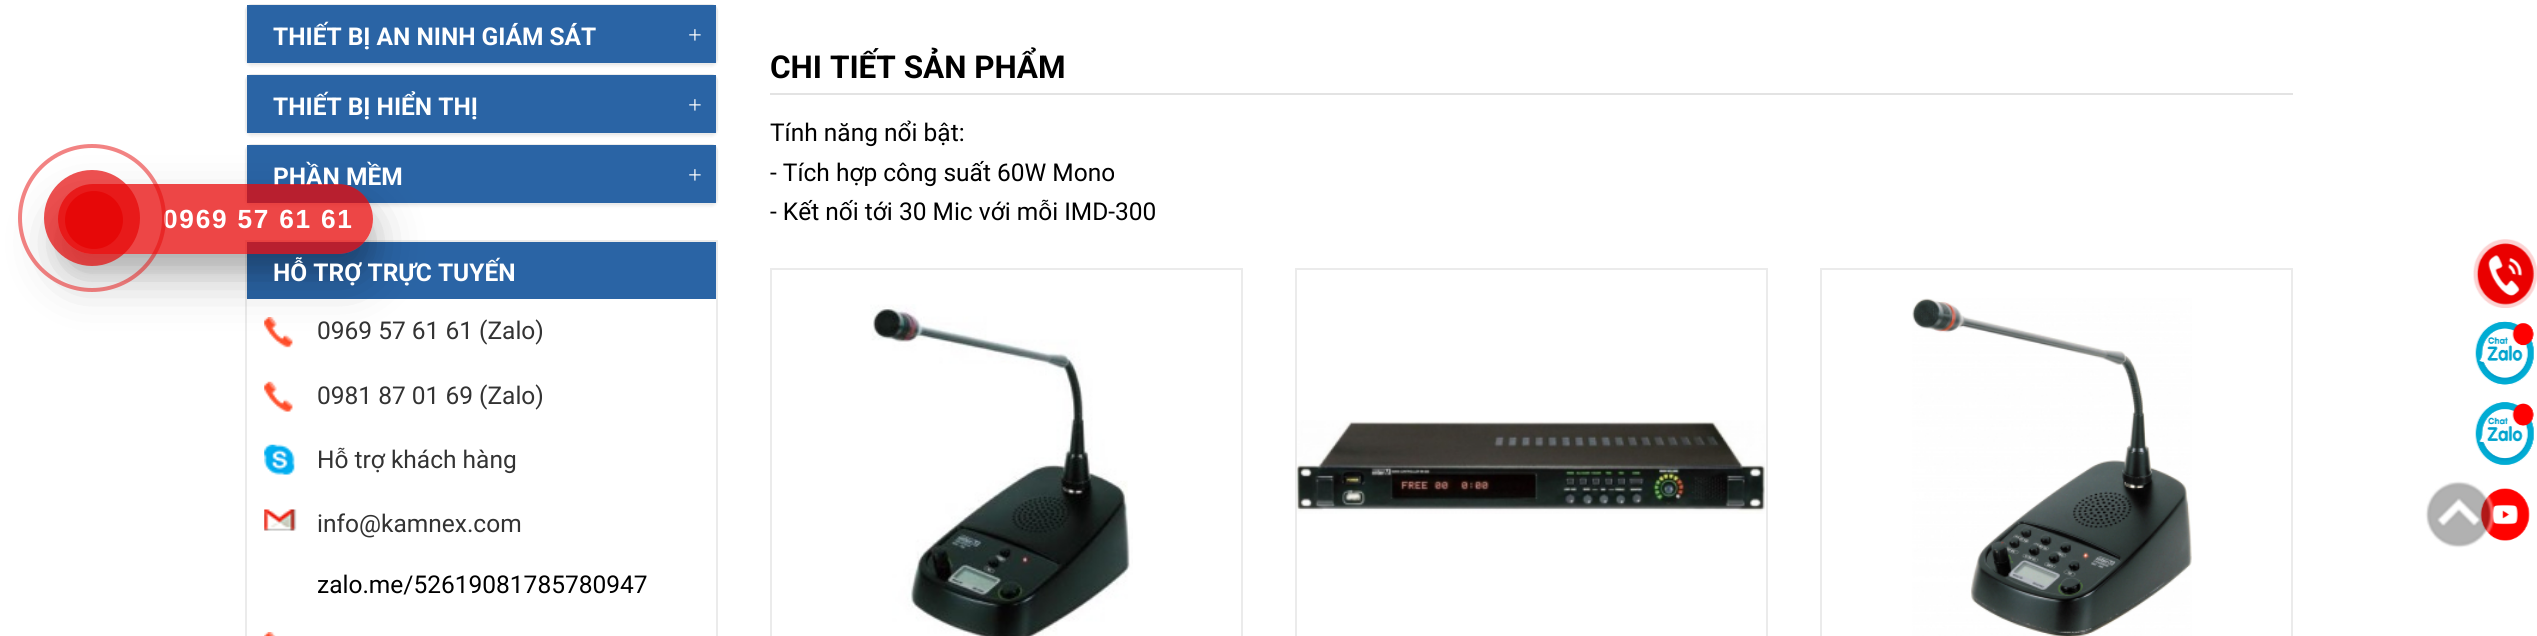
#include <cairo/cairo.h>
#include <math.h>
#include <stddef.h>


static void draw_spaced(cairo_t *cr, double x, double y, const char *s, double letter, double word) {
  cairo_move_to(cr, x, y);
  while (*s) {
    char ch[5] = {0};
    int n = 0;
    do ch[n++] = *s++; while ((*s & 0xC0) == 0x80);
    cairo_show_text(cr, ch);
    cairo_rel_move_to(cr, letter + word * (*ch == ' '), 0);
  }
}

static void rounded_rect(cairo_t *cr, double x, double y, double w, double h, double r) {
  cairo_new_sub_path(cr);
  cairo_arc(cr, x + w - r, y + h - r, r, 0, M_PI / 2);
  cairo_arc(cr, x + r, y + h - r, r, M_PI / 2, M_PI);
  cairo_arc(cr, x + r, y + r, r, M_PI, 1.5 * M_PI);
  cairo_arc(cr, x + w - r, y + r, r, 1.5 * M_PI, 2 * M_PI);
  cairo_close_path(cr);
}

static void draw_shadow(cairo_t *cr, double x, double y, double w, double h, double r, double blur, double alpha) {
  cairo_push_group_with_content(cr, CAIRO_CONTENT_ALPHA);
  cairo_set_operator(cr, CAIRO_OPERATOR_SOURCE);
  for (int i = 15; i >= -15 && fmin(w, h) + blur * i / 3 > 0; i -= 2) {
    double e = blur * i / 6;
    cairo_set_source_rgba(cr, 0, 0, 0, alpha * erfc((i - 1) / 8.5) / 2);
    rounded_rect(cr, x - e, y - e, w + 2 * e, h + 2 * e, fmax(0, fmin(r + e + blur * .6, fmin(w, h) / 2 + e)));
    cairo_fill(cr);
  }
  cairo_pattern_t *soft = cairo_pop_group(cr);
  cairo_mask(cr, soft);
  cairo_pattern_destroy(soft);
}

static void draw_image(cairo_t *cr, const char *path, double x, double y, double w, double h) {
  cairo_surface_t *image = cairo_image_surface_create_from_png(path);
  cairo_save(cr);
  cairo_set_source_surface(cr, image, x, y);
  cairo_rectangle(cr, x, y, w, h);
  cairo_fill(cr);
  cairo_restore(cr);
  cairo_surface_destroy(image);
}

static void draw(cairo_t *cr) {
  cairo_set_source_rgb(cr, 1, 1, 1);
  cairo_paint(cr);
  cairo_set_source_rgb(cr, 0, 0, 0);
  draw_shadow(cr, 245, 145, 473, 62, 7, 1, 0.05);
  rounded_rect(cr, 246, 145, 471, 59, 6);
  cairo_set_source_rgb(cr, 235 / 255.0, 235 / 255.0, 235 / 255.0);
  cairo_stroke(cr);
  cairo_set_source_rgb(cr, 42 / 255.0, 100 / 255.0, 165 / 255.0);
  cairo_rectangle(cr, 247, 145, 469, 58);
  cairo_fill(cr);
  cairo_rectangle(cr, 246, 241, 471, 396);
  cairo_set_source_rgb(cr, 235 / 255.0, 235 / 255.0, 235 / 255.0);
  cairo_stroke(cr);
  cairo_set_source_rgb(cr, 42 / 255.0, 100 / 255.0, 165 / 255.0);
  cairo_rectangle(cr, 247, 242, 469, 57);
  cairo_fill(cr);
  cairo_save(cr);
  cairo_set_fill_rule(cr, CAIRO_FILL_RULE_EVEN_ODD);
  cairo_new_path(cr);
  cairo_move_to(cr, 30, 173);
  cairo_line_to(cr, 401, 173);
  cairo_line_to(cr, 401, 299);
  cairo_line_to(cr, 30, 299);
  cairo_close_path(cr);
  cairo_move_to(cr, 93, 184);
  cairo_line_to(cr, 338, 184);
  cairo_curve_to(cr, 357.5, 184, 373, 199.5, 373, 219);
  cairo_curve_to(cr, 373, 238.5, 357.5, 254, 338, 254);
  cairo_line_to(cr, 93, 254);
  cairo_curve_to(cr, 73.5, 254, 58, 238.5, 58, 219);
  cairo_curve_to(cr, 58, 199.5, 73.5, 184, 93, 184);
  cairo_close_path(cr);
  cairo_clip(cr);
  cairo_set_source_rgb(cr, 0, 0, 0);
  draw_shadow(cr, 58, 201, 315, 70, 35, 9, 0.1);
  cairo_restore(cr);
  cairo_set_source_rgb(cr, 0, 0, 0);
  draw_shadow(cr, 245, 75, 473, 62, 7, 1, 0.05);
  rounded_rect(cr, 246, 75, 471, 59, 6);
  cairo_set_source_rgb(cr, 235 / 255.0, 235 / 255.0, 235 / 255.0);
  cairo_stroke(cr);
  draw_image(cr, "images/1.png", 264, 317, 29, 31);
  cairo_save(cr);
  cairo_set_fill_rule(cr, CAIRO_FILL_RULE_EVEN_ODD);
  cairo_new_path(cr);
  cairo_move_to(cr, 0, 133);
  cairo_line_to(cr, 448, 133);
  cairo_line_to(cr, 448, 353);
  cairo_line_to(cr, 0, 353);
  cairo_close_path(cr);
  cairo_move_to(cr, 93, 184);
  cairo_line_to(cr, 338, 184);
  cairo_curve_to(cr, 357.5, 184, 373, 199.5, 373, 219);
  cairo_curve_to(cr, 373, 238.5, 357.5, 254, 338, 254);
  cairo_line_to(cr, 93, 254);
  cairo_curve_to(cr, 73.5, 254, 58, 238.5, 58, 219);
  cairo_curve_to(cr, 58, 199.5, 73.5, 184, 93, 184);
  cairo_close_path(cr);
  cairo_clip(cr);
  cairo_set_source_rgb(cr, 0, 0, 0);
  draw_shadow(cr, 58, 208, 315, 70, 35, 24.5, 0.25);
  cairo_restore(cr);
  cairo_set_source_rgb(cr, 0, 0, 0);
  draw_shadow(cr, 245, 5, 473, 62, 7, 1, 0.05);
  rounded_rect(cr, 246, 5, 471, 59, 6);
  cairo_set_source_rgb(cr, 235 / 255.0, 235 / 255.0, 235 / 255.0);
  cairo_stroke(cr);
  cairo_set_source_rgb(cr, 42 / 255.0, 100 / 255.0, 165 / 255.0);
  cairo_rectangle(cr, 247, 5, 469, 58);
  cairo_fill(cr);
  cairo_rectangle(cr, 247, 75, 469, 58);
  cairo_fill(cr);
  draw_image(cr, "images/2.png", 264, 381, 29, 31);
  draw_image(cr, "images/3.png", 264, 444, 31, 31);
  draw_image(cr, "images/4.png", 264, 509, 33, 22);
  draw_image(cr, "images/5.png", 264, 632, 12, 4);
  cairo_set_source_rgb(cr, 227 / 255.0, 227 / 255.0, 227 / 255.0);
  cairo_rectangle(cr, 770, 93, 1523, 2);
  cairo_fill(cr);
  cairo_rectangle(cr, 771, 269, 471, 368);
  cairo_set_source_rgb(cr, 235 / 255.0, 235 / 255.0, 235 / 255.0);
  cairo_stroke(cr);
  draw_image(cr, "images/6.png", 870, 304, 263, 332);
  cairo_rectangle(cr, 1296, 269, 471, 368);
  cairo_stroke(cr);
  draw_image(cr, "images/7.png", 1297, 420, 469, 94);
  cairo_rectangle(cr, 1821, 269, 471, 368);
  cairo_stroke(cr);
  draw_image(cr, "images/8.png", 1912, 298, 280, 338);
  draw_image(cr, "images/13.png", 2480, 488, 50, 53);
  draw_image(cr, "images/9.png", 2425, 481, 69, 67);
  draw_image(cr, "images/10.png", 2473, 239, 64, 69);
  draw_image(cr, "images/11.png", 2475, 321, 60, 64);
  draw_image(cr, "images/12.png", 2475, 402, 60, 64);
  cairo_select_font_face(cr, "Roboto", CAIRO_FONT_SLANT_NORMAL, CAIRO_FONT_WEIGHT_BOLD);
  cairo_set_font_size(cr, 24.5);
  cairo_set_source_rgb(cr, 1, 1, 1);
  cairo_move_to(cr, 273, 45);
  cairo_show_text(cr, "THIẾT BỊ AN NINH GIÁM SÁT");
  cairo_select_font_face(cr, "Liberation Serif", CAIRO_FONT_SLANT_NORMAL, CAIRO_FONT_WEIGHT_NORMAL);
  cairo_move_to(cr, 688, 43);
  cairo_show_text(cr, "+");
  cairo_select_font_face(cr, "Roboto", CAIRO_FONT_SLANT_NORMAL, CAIRO_FONT_WEIGHT_BOLD);
  cairo_move_to(cr, 273, 115);
  cairo_show_text(cr, "THIẾT BỊ HIỂN THỊ");
  cairo_select_font_face(cr, "Liberation Serif", CAIRO_FONT_SLANT_NORMAL, CAIRO_FONT_WEIGHT_NORMAL);
  cairo_move_to(cr, 688, 113);
  cairo_show_text(cr, "+");
  cairo_select_font_face(cr, "Roboto", CAIRO_FONT_SLANT_NORMAL, CAIRO_FONT_WEIGHT_BOLD);
  cairo_move_to(cr, 273, 185);
  cairo_show_text(cr, "PHẦN MỀM");
  cairo_set_source_rgba(cr, 230 / 255.0, 8 / 255.0, 8 / 255.0, 0.75);
  rounded_rect(cr, 58, 184, 315, 70, 35);
  cairo_fill(cr);
  cairo_select_font_face(cr, "Liberation Sans", CAIRO_FONT_SLANT_NORMAL, CAIRO_FONT_WEIGHT_BOLD);
  cairo_set_font_size(cr, 26.25);
  cairo_set_source_rgb(cr, 1, 1, 1);
  draw_spaced(cr, 163, 228, "0969 57 61 61", 1.75, 0);
  cairo_new_path(cr);
  cairo_arc(cr, 92, 218, 72, 0, 2 * M_PI);
  cairo_set_source_rgba(cr, 230 / 255.0, 8 / 255.0, 8 / 255.0, 0.5);
  cairo_set_line_width(cr, 4);
  cairo_stroke(cr);
  cairo_set_source_rgba(cr, 230 / 255.0, 8 / 255.0, 8 / 255.0, 0.7);
  cairo_arc(cr, 92, 218, 48, 0, 2 * M_PI);
  cairo_fill(cr);
  cairo_set_source_rgb(cr, 230 / 255.0, 8 / 255.0, 8 / 255.0);
  cairo_arc(cr, 94, 220, 29, 0, 2 * M_PI);
  cairo_fill(cr);
  cairo_select_font_face(cr, "Liberation Serif", CAIRO_FONT_SLANT_NORMAL, CAIRO_FONT_WEIGHT_NORMAL);
  cairo_set_font_size(cr, 24.5);
  cairo_set_source_rgb(cr, 1, 1, 1);
  cairo_move_to(cr, 688, 183);
  cairo_show_text(cr, "+");
  cairo_select_font_face(cr, "Roboto", CAIRO_FONT_SLANT_NORMAL, CAIRO_FONT_WEIGHT_BOLD);
  cairo_move_to(cr, 273, 281);
  cairo_show_text(cr, "HỖ TRỢ TRỰC TUYẾN");
  cairo_select_font_face(cr, "Roboto", CAIRO_FONT_SLANT_NORMAL, CAIRO_FONT_WEIGHT_NORMAL);
  cairo_set_source_rgb(cr, 51 / 255.0, 51 / 255.0, 51 / 255.0);
  cairo_move_to(cr, 317, 339);
  cairo_show_text(cr, "0969 57 61 61 (Zalo)");
  cairo_move_to(cr, 317, 404);
  cairo_show_text(cr, "0981 87 01 69 (Zalo)");
  cairo_move_to(cr, 317, 468);
  cairo_show_text(cr, "Hỗ trợ khách hàng");
  cairo_move_to(cr, 317, 532);
  cairo_show_text(cr, "info@kamnex.com");
  cairo_set_source_rgb(cr, 0, 0, 0);
  cairo_move_to(cr, 317, 593);
  cairo_show_text(cr, "zalo.me/52619081785780947");
  cairo_select_font_face(cr, "Roboto", CAIRO_FONT_SLANT_NORMAL, CAIRO_FONT_WEIGHT_BOLD);
  cairo_set_font_size(cr, 31.5);
  cairo_move_to(cr, 770, 78);
  cairo_show_text(cr, "CHI TIẾT SẢN PHẨM");
  cairo_select_font_face(cr, "Roboto", CAIRO_FONT_SLANT_NORMAL, CAIRO_FONT_WEIGHT_NORMAL);
  cairo_set_font_size(cr, 24.5);
  cairo_move_to(cr, 770, 141);
  cairo_show_text(cr, "Tính năng nổi bật:");
  cairo_move_to(cr, 770, 181);
  cairo_show_text(cr, "- Tích hợp công suất 60W Mono");
  cairo_move_to(cr, 770, 220);
  cairo_show_text(cr, "- Kết nối tới 30 Mic với mỗi IMD-300");
}

int main(void) {
  cairo_surface_t *surface = cairo_image_surface_create(CAIRO_FORMAT_RGB24, 2537, 636);
  cairo_t *cr = cairo_create(surface);
  cairo_font_options_t *options = cairo_font_options_create();
  cairo_font_options_set_hint_metrics(options, CAIRO_HINT_METRICS_OFF);
  cairo_font_options_set_hint_style(options, CAIRO_HINT_STYLE_NONE);
  cairo_set_font_options(cr, options);
  cairo_set_miter_limit(cr, 4);
  draw(cr);
  cairo_surface_write_to_png(surface, "out.png");
  cairo_font_options_destroy(options);
  cairo_destroy(cr);
  cairo_surface_destroy(surface);
  return 0;
}
